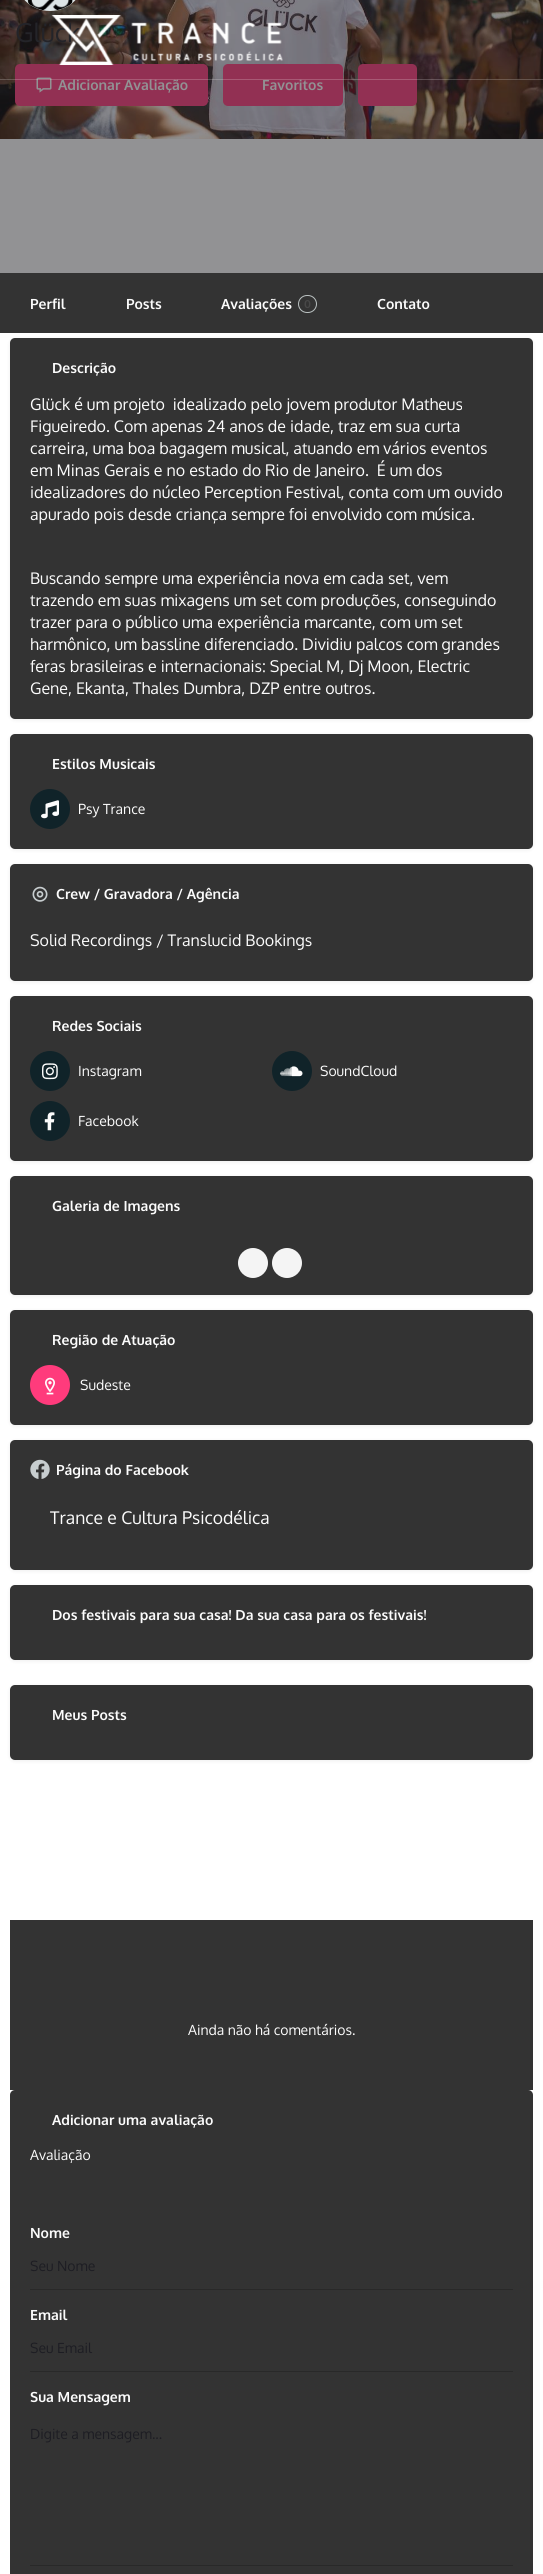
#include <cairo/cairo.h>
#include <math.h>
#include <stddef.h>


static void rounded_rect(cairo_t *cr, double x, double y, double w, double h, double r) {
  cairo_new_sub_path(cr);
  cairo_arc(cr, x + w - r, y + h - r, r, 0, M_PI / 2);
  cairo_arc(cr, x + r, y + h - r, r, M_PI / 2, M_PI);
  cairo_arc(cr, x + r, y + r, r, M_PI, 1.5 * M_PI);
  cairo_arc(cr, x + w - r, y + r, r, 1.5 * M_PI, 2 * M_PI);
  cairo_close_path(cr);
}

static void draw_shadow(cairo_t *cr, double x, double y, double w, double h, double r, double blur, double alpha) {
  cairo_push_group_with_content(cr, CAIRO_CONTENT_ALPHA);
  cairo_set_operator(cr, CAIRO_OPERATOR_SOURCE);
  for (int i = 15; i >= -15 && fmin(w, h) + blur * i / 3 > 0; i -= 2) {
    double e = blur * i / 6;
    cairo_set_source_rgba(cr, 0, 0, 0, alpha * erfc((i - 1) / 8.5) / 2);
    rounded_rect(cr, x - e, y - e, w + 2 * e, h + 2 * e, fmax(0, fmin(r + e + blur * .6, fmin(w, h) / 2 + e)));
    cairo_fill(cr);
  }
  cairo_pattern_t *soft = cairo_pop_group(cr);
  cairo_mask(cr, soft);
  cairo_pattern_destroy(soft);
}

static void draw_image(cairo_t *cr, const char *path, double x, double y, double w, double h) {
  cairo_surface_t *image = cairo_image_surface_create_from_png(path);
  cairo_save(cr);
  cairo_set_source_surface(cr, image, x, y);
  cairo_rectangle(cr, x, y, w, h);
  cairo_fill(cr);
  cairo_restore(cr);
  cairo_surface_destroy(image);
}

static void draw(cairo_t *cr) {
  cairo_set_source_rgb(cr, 1, 1, 1);
  cairo_paint(cr);
  cairo_set_source_rgb(cr, 146 / 255.0, 146 / 255.0, 148 / 255.0);
  cairo_rectangle(cr, 0, 139, 543, 134);
  cairo_fill(cr);
  draw_image(cr, "images/2.png", 0, 0, 543, 139);
  cairo_set_source_rgb(cr, 221 / 255.0, 229 / 255.0, 230 / 255.0);
  cairo_new_path(cr);
  cairo_move_to(cr, 15, -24);
  cairo_line_to(cr, 85, -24);
  cairo_curve_to(cr, 85, -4.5, 69.5, 11, 50, 11);
  cairo_curve_to(cr, 30.5, 11, 15, -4.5, 15, -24);
  cairo_close_path(cr);
  cairo_fill(cr);
  draw_image(cr, "images/3.png", 27, 0, 46, 10);
  cairo_set_source_rgb(cr, 146 / 255.0, 48 / 255.0, 83 / 255.0);
  rounded_rect(cr, 15, 64, 193, 42, 5);
  cairo_fill(cr);
  draw_image(cr, "images/4.png", 36, 77, 16, 16);
  rounded_rect(cr, 223, 64, 120, 42, 5);
  cairo_fill(cr);
  rounded_rect(cr, 358, 64, 59, 42, 5);
  cairo_fill(cr);
  cairo_set_source_rgb(cr, 51 / 255.0, 51 / 255.0, 51 / 255.0);
  cairo_rectangle(cr, 0, 273, 543, 60);
  cairo_fill(cr);
  rounded_rect(cr, 298.5, 295.5, 18, 17, 8.5);
  cairo_set_source_rgb(cr, 186 / 255.0, 193 / 255.0, 193 / 255.0);
  cairo_set_line_width(cr, 1);
  cairo_stroke(cr);
  cairo_save(cr);
  cairo_set_fill_rule(cr, CAIRO_FILL_RULE_EVEN_ODD);
  cairo_new_path(cr);
  cairo_move_to(cr, 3, 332);
  cairo_line_to(cr, 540, 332);
  cairo_line_to(cr, 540, 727);
  cairo_line_to(cr, 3, 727);
  cairo_close_path(cr);
  cairo_move_to(cr, 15, 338);
  cairo_line_to(cr, 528, 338);
  cairo_curve_to(cr, 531, 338, 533, 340, 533, 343);
  cairo_line_to(cr, 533, 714);
  cairo_curve_to(cr, 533, 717, 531, 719, 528, 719);
  cairo_line_to(cr, 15, 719);
  cairo_curve_to(cr, 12, 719, 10, 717, 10, 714);
  cairo_line_to(cr, 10, 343);
  cairo_curve_to(cr, 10, 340, 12, 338, 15, 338);
  cairo_close_path(cr);
  cairo_clip(cr);
  cairo_set_source_rgb(cr, 0, 0, 0);
  draw_shadow(cr, 10, 339, 523, 381, 5, 2, 0.07);
  cairo_restore(cr);
  cairo_set_source_rgba(cr, 0, 0, 0, 0.8);
  rounded_rect(cr, 10, 338, 523, 381, 5);
  cairo_fill(cr);
  cairo_save(cr);
  cairo_set_fill_rule(cr, CAIRO_FILL_RULE_EVEN_ODD);
  cairo_new_path(cr);
  cairo_move_to(cr, 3, 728);
  cairo_line_to(cr, 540, 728);
  cairo_line_to(cr, 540, 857);
  cairo_line_to(cr, 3, 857);
  cairo_close_path(cr);
  cairo_move_to(cr, 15, 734);
  cairo_line_to(cr, 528, 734);
  cairo_curve_to(cr, 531, 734, 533, 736, 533, 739);
  cairo_line_to(cr, 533, 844);
  cairo_curve_to(cr, 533, 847, 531, 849, 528, 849);
  cairo_line_to(cr, 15, 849);
  cairo_curve_to(cr, 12, 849, 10, 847, 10, 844);
  cairo_line_to(cr, 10, 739);
  cairo_curve_to(cr, 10, 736, 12, 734, 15, 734);
  cairo_close_path(cr);
  cairo_clip(cr);
  cairo_set_source_rgb(cr, 0, 0, 0);
  draw_shadow(cr, 10, 735, 523, 115, 5, 2, 0.07);
  cairo_restore(cr);
  rounded_rect(cr, 10, 734, 523, 115, 5);
  cairo_fill(cr);
  cairo_set_source_rgb(cr, 16 / 255.0, 35 / 255.0, 41 / 255.0);
  cairo_arc(cr, 50, 809, 20, 0, 2 * M_PI);
  cairo_fill(cr);
  draw_image(cr, "images/5.png", 41, 800, 18, 19);
  cairo_save(cr);
  cairo_set_fill_rule(cr, CAIRO_FILL_RULE_EVEN_ODD);
  cairo_new_path(cr);
  cairo_move_to(cr, 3, 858);
  cairo_line_to(cr, 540, 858);
  cairo_line_to(cr, 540, 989);
  cairo_line_to(cr, 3, 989);
  cairo_close_path(cr);
  cairo_move_to(cr, 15, 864);
  cairo_line_to(cr, 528, 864);
  cairo_curve_to(cr, 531, 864, 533, 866, 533, 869);
  cairo_line_to(cr, 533, 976);
  cairo_curve_to(cr, 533, 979, 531, 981, 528, 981);
  cairo_line_to(cr, 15, 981);
  cairo_curve_to(cr, 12, 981, 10, 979, 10, 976);
  cairo_line_to(cr, 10, 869);
  cairo_curve_to(cr, 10, 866, 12, 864, 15, 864);
  cairo_close_path(cr);
  cairo_clip(cr);
  cairo_set_source_rgb(cr, 0, 0, 0);
  draw_shadow(cr, 10, 865, 523, 117, 5, 2, 0.07);
  cairo_restore(cr);
  cairo_set_source_rgba(cr, 0, 0, 0, 0.8);
  rounded_rect(cr, 10, 864, 523, 117, 5);
  cairo_fill(cr);
  draw_image(cr, "images/6.png", 32, 886, 16, 16);
  cairo_save(cr);
  cairo_set_fill_rule(cr, CAIRO_FILL_RULE_EVEN_ODD);
  cairo_new_path(cr);
  cairo_move_to(cr, 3, 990);
  cairo_line_to(cr, 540, 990);
  cairo_line_to(cr, 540, 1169);
  cairo_line_to(cr, 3, 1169);
  cairo_close_path(cr);
  cairo_move_to(cr, 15, 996);
  cairo_line_to(cr, 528, 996);
  cairo_curve_to(cr, 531, 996, 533, 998, 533, 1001);
  cairo_line_to(cr, 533, 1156);
  cairo_curve_to(cr, 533, 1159, 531, 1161, 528, 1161);
  cairo_line_to(cr, 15, 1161);
  cairo_curve_to(cr, 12, 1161, 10, 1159, 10, 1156);
  cairo_line_to(cr, 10, 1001);
  cairo_curve_to(cr, 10, 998, 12, 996, 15, 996);
  cairo_close_path(cr);
  cairo_clip(cr);
  cairo_set_source_rgb(cr, 0, 0, 0);
  draw_shadow(cr, 10, 997, 523, 165, 5, 2, 0.07);
  cairo_restore(cr);
  rounded_rect(cr, 10, 996, 523, 165, 5);
  cairo_fill(cr);
  cairo_set_source_rgb(cr, 16 / 255.0, 35 / 255.0, 41 / 255.0);
  cairo_arc(cr, 50, 1071, 20, 0, 2 * M_PI);
  cairo_fill(cr);
  draw_image(cr, "images/7.png", 42, 1063, 16, 17);
  cairo_arc(cr, 292, 1071, 20, 0, 2 * M_PI);
  cairo_fill(cr);
  draw_image(cr, "images/8.png", 280, 1066, 23, 11);
  cairo_arc(cr, 50, 1121, 20, 0, 2 * M_PI);
  cairo_fill(cr);
  draw_image(cr, "images/9.png", 44, 1112, 11, 19);
  cairo_save(cr);
  cairo_set_fill_rule(cr, CAIRO_FILL_RULE_EVEN_ODD);
  cairo_new_path(cr);
  cairo_move_to(cr, 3, 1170);
  cairo_line_to(cr, 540, 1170);
  cairo_line_to(cr, 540, 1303);
  cairo_line_to(cr, 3, 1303);
  cairo_close_path(cr);
  cairo_move_to(cr, 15, 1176);
  cairo_line_to(cr, 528, 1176);
  cairo_curve_to(cr, 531, 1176, 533, 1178, 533, 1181);
  cairo_line_to(cr, 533, 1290);
  cairo_curve_to(cr, 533, 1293, 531, 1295, 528, 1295);
  cairo_line_to(cr, 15, 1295);
  cairo_curve_to(cr, 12, 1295, 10, 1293, 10, 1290);
  cairo_line_to(cr, 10, 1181);
  cairo_curve_to(cr, 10, 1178, 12, 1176, 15, 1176);
  cairo_close_path(cr);
  cairo_clip(cr);
  cairo_set_source_rgb(cr, 0, 0, 0);
  draw_shadow(cr, 10, 1177, 523, 119, 5, 2, 0.07);
  cairo_restore(cr);
  cairo_set_source_rgba(cr, 0, 0, 0, 0.8);
  rounded_rect(cr, 10, 1176, 523, 119, 5);
  cairo_fill(cr);
  cairo_set_source_rgb(cr, 244 / 255.0, 244 / 255.0, 244 / 255.0);
  cairo_arc(cr, 253, 1263, 15, 0, 2 * M_PI);
  cairo_fill(cr);
  cairo_arc(cr, 287, 1263, 15, 0, 2 * M_PI);
  cairo_fill(cr);
  cairo_save(cr);
  cairo_set_fill_rule(cr, CAIRO_FILL_RULE_EVEN_ODD);
  cairo_new_path(cr);
  cairo_move_to(cr, 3, 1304);
  cairo_line_to(cr, 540, 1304);
  cairo_line_to(cr, 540, 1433);
  cairo_line_to(cr, 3, 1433);
  cairo_close_path(cr);
  cairo_move_to(cr, 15, 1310);
  cairo_line_to(cr, 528, 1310);
  cairo_curve_to(cr, 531, 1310, 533, 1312, 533, 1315);
  cairo_line_to(cr, 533, 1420);
  cairo_curve_to(cr, 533, 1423, 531, 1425, 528, 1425);
  cairo_line_to(cr, 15, 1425);
  cairo_curve_to(cr, 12, 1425, 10, 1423, 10, 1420);
  cairo_line_to(cr, 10, 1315);
  cairo_curve_to(cr, 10, 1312, 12, 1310, 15, 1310);
  cairo_close_path(cr);
  cairo_clip(cr);
  cairo_set_source_rgb(cr, 0, 0, 0);
  draw_shadow(cr, 10, 1311, 523, 115, 5, 2, 0.07);
  cairo_restore(cr);
  cairo_set_source_rgba(cr, 0, 0, 0, 0.8);
  rounded_rect(cr, 10, 1310, 523, 115, 5);
  cairo_fill(cr);
  cairo_set_source_rgb(cr, 1, 59 / 255.0, 124 / 255.0);
  cairo_arc(cr, 50, 1385, 20, 0, 2 * M_PI);
  cairo_fill(cr);
  draw_image(cr, "images/10.png", 45, 1377, 10, 18);
  cairo_save(cr);
  cairo_set_fill_rule(cr, CAIRO_FILL_RULE_EVEN_ODD);
  cairo_new_path(cr);
  cairo_move_to(cr, 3, 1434);
  cairo_line_to(cr, 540, 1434);
  cairo_line_to(cr, 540, 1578);
  cairo_line_to(cr, 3, 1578);
  cairo_close_path(cr);
  cairo_move_to(cr, 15, 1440);
  cairo_line_to(cr, 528, 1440);
  cairo_curve_to(cr, 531, 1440, 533, 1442, 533, 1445);
  cairo_line_to(cr, 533, 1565);
  cairo_curve_to(cr, 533, 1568, 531, 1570, 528, 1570);
  cairo_line_to(cr, 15, 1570);
  cairo_curve_to(cr, 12, 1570, 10, 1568, 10, 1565);
  cairo_line_to(cr, 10, 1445);
  cairo_curve_to(cr, 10, 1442, 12, 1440, 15, 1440);
  cairo_close_path(cr);
  cairo_clip(cr);
  cairo_set_source_rgb(cr, 0, 0, 0);
  draw_shadow(cr, 10, 1441, 523, 130, 5, 2, 0.07);
  cairo_restore(cr);
  cairo_set_source_rgba(cr, 0, 0, 0, 0.8);
  rounded_rect(cr, 10, 1440, 523, 130, 5);
  cairo_fill(cr);
  draw_image(cr, "images/11.png", 30, 1459, 20, 20);
  cairo_save(cr);
  cairo_set_fill_rule(cr, CAIRO_FILL_RULE_EVEN_ODD);
  cairo_new_path(cr);
  cairo_move_to(cr, 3, 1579);
  cairo_line_to(cr, 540, 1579);
  cairo_line_to(cr, 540, 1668);
  cairo_line_to(cr, 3, 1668);
  cairo_close_path(cr);
  cairo_move_to(cr, 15, 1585);
  cairo_line_to(cr, 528, 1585);
  cairo_curve_to(cr, 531, 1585, 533, 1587, 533, 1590);
  cairo_line_to(cr, 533, 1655);
  cairo_curve_to(cr, 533, 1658, 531, 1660, 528, 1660);
  cairo_line_to(cr, 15, 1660);
  cairo_curve_to(cr, 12, 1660, 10, 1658, 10, 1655);
  cairo_line_to(cr, 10, 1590);
  cairo_curve_to(cr, 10, 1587, 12, 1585, 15, 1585);
  cairo_close_path(cr);
  cairo_clip(cr);
  cairo_set_source_rgb(cr, 0, 0, 0);
  draw_shadow(cr, 10, 1586, 523, 75, 5, 2, 0.07);
  cairo_restore(cr);
  rounded_rect(cr, 10, 1585, 523, 75, 5);
  cairo_fill(cr);
  cairo_save(cr);
  cairo_set_fill_rule(cr, CAIRO_FILL_RULE_EVEN_ODD);
  cairo_new_path(cr);
  cairo_move_to(cr, 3, 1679);
  cairo_line_to(cr, 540, 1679);
  cairo_line_to(cr, 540, 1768);
  cairo_line_to(cr, 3, 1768);
  cairo_close_path(cr);
  cairo_move_to(cr, 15, 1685);
  cairo_line_to(cr, 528, 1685);
  cairo_curve_to(cr, 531, 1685, 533, 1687, 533, 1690);
  cairo_line_to(cr, 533, 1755);
  cairo_curve_to(cr, 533, 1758, 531, 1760, 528, 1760);
  cairo_line_to(cr, 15, 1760);
  cairo_curve_to(cr, 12, 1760, 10, 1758, 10, 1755);
  cairo_line_to(cr, 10, 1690);
  cairo_curve_to(cr, 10, 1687, 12, 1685, 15, 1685);
  cairo_close_path(cr);
  cairo_clip(cr);
  cairo_set_source_rgb(cr, 0, 0, 0);
  draw_shadow(cr, 10, 1686, 523, 75, 5, 2, 0.07);
  cairo_restore(cr);
  rounded_rect(cr, 10, 1685, 523, 75, 5);
  cairo_fill(cr);
  cairo_set_source_rgb(cr, 51 / 255.0, 51 / 255.0, 51 / 255.0);
  cairo_rectangle(cr, 10, 1920, 523, 170);
  cairo_fill(cr);
  cairo_set_source_rgba(cr, 0, 0, 0, 0.8);
  rounded_rect(cr, 10, 2090, 523, 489, 5);
  cairo_fill(cr);
  cairo_set_source_rgb(cr, 41 / 255.0, 41 / 255.0, 41 / 255.0);
  cairo_rectangle(cr, 30, 2289, 483, 1);
  cairo_fill(cr);
  cairo_rectangle(cr, 30, 2371, 483, 1);
  cairo_fill(cr);
  cairo_rectangle(cr, 30, 2565, 483, 1);
  cairo_fill(cr);
  cairo_select_font_face(cr, "Oxygen", CAIRO_FONT_SLANT_NORMAL, CAIRO_FONT_WEIGHT_NORMAL);
  cairo_set_font_size(cr, 26);
  cairo_set_source_rgb(cr, 36 / 255.0, 36 / 255.0, 41 / 255.0);
  cairo_move_to(cr, 15, 42);
  cairo_show_text(cr, "Glück");
  draw_image(cr, "images/1.png", 51, 15, 232, 50);
  cairo_select_font_face(cr, "Oxygen", CAIRO_FONT_SLANT_NORMAL, CAIRO_FONT_WEIGHT_BOLD);
  cairo_set_font_size(cr, 14);
  cairo_set_source_rgb(cr, 146 / 255.0, 146 / 255.0, 148 / 255.0);
  cairo_move_to(cr, 58, 90);
  cairo_show_text(cr, "Adicionar Avaliação");
  cairo_move_to(cr, 262, 90);
  cairo_show_text(cr, "Favoritos");
  cairo_set_source_rgba(cr, 1, 1, 1, 0.2);
  cairo_rectangle(cr, 0, 79, 543, 1);
  cairo_fill(cr);
  cairo_set_source_rgb(cr, 252 / 255.0, 252 / 255.0, 252 / 255.0);
  cairo_move_to(cr, 30, 309);
  cairo_show_text(cr, "Perfil");
  cairo_move_to(cr, 126, 309);
  cairo_show_text(cr, "Posts");
  cairo_move_to(cr, 221, 309);
  cairo_show_text(cr, "Avaliações");
  cairo_set_font_size(cr, 11);
  cairo_set_source_rgb(cr, 72 / 255.0, 72 / 255.0, 72 / 255.0);
  cairo_move_to(cr, 304, 308);
  cairo_show_text(cr, "0");
  cairo_set_font_size(cr, 14);
  cairo_set_source_rgb(cr, 252 / 255.0, 252 / 255.0, 252 / 255.0);
  cairo_move_to(cr, 377, 309);
  cairo_show_text(cr, "Contato");
  cairo_move_to(cr, 52, 373);
  cairo_show_text(cr, "Descrição");
  cairo_select_font_face(cr, "Oxygen", CAIRO_FONT_SLANT_NORMAL, CAIRO_FONT_WEIGHT_NORMAL);
  cairo_set_font_size(cr, 16);
  cairo_move_to(cr, 30, 410);
  cairo_show_text(cr, "Glück é um projeto  idealizado pelo jovem produtor Matheus");
  cairo_move_to(cr, 30, 432);
  cairo_show_text(cr, "Figueiredo. Com apenas 24 anos de idade, traz em sua curta");
  cairo_move_to(cr, 30, 454);
  cairo_show_text(cr, "carreira, uma boa bagagem musical, atuando em vários eventos");
  cairo_move_to(cr, 30, 476);
  cairo_show_text(cr, "em Minas Gerais e no estado do Rio de Janeiro.  É um dos");
  cairo_move_to(cr, 30, 498);
  cairo_show_text(cr, "idealizadores do núcleo Perception Festival, conta com um ouvido");
  cairo_move_to(cr, 30, 520);
  cairo_show_text(cr, "apurado pois desde criança sempre foi envolvido com música.");
  cairo_move_to(cr, 30, 584);
  cairo_show_text(cr, "Buscando sempre uma experiência nova em cada set, vem");
  cairo_move_to(cr, 30, 606);
  cairo_show_text(cr, "trazendo em suas mixagens um set com produções, conseguindo");
  cairo_move_to(cr, 30, 628);
  cairo_show_text(cr, "trazer para o público uma experiência marcante, com um set");
  cairo_move_to(cr, 30, 650);
  cairo_show_text(cr, "harmônico, um bassline diferenciado. Dividiu palcos com grandes");
  cairo_move_to(cr, 30, 672);
  cairo_show_text(cr, "feras brasileiras e internacionais: Special M, Dj Moon, Electric");
  cairo_move_to(cr, 30, 694);
  cairo_show_text(cr, "Gene, Ekanta, Thales Dumbra, DZP entre outros.");
  cairo_select_font_face(cr, "Oxygen", CAIRO_FONT_SLANT_NORMAL, CAIRO_FONT_WEIGHT_BOLD);
  cairo_set_font_size(cr, 14);
  cairo_move_to(cr, 52, 769);
  cairo_show_text(cr, "Estilos Musicais");
  cairo_select_font_face(cr, "Oxygen", CAIRO_FONT_SLANT_NORMAL, CAIRO_FONT_WEIGHT_NORMAL);
  cairo_move_to(cr, 78, 814);
  cairo_show_text(cr, "Psy Trance");
  cairo_select_font_face(cr, "Oxygen", CAIRO_FONT_SLANT_NORMAL, CAIRO_FONT_WEIGHT_BOLD);
  cairo_move_to(cr, 56, 899);
  cairo_show_text(cr, "Crew / Gravadora / Agência");
  cairo_select_font_face(cr, "Oxygen", CAIRO_FONT_SLANT_NORMAL, CAIRO_FONT_WEIGHT_NORMAL);
  cairo_set_font_size(cr, 16);
  cairo_move_to(cr, 30, 946);
  cairo_show_text(cr, "Solid Recordings / Translucid Bookings");
  cairo_select_font_face(cr, "Oxygen", CAIRO_FONT_SLANT_NORMAL, CAIRO_FONT_WEIGHT_BOLD);
  cairo_set_font_size(cr, 14);
  cairo_move_to(cr, 52, 1031);
  cairo_show_text(cr, "Redes Sociais");
  cairo_select_font_face(cr, "Oxygen", CAIRO_FONT_SLANT_NORMAL, CAIRO_FONT_WEIGHT_NORMAL);
  cairo_move_to(cr, 78, 1076);
  cairo_show_text(cr, "Instagram");
  cairo_move_to(cr, 320, 1076);
  cairo_show_text(cr, "SoundCloud");
  cairo_move_to(cr, 78, 1126);
  cairo_show_text(cr, "Facebook");
  cairo_select_font_face(cr, "Oxygen", CAIRO_FONT_SLANT_NORMAL, CAIRO_FONT_WEIGHT_BOLD);
  cairo_move_to(cr, 52, 1211);
  cairo_show_text(cr, "Galeria de Imagens");
  cairo_move_to(cr, 52, 1345);
  cairo_show_text(cr, "Região de Atuação");
  cairo_select_font_face(cr, "Oxygen", CAIRO_FONT_SLANT_NORMAL, CAIRO_FONT_WEIGHT_NORMAL);
  cairo_move_to(cr, 80, 1390);
  cairo_show_text(cr, "Sudeste");
  cairo_select_font_face(cr, "Oxygen", CAIRO_FONT_SLANT_NORMAL, CAIRO_FONT_WEIGHT_BOLD);
  cairo_move_to(cr, 56, 1475);
  cairo_show_text(cr, "Página do Facebook");
  cairo_select_font_face(cr, "Oxygen", CAIRO_FONT_SLANT_NORMAL, CAIRO_FONT_WEIGHT_NORMAL);
  cairo_set_font_size(cr, 17.5);
  cairo_move_to(cr, 50, 1524);
  cairo_show_text(cr, "Trance e Cultura Psicodélica");
  cairo_select_font_face(cr, "Oxygen", CAIRO_FONT_SLANT_NORMAL, CAIRO_FONT_WEIGHT_BOLD);
  cairo_set_font_size(cr, 14);
  cairo_move_to(cr, 52, 1620);
  cairo_show_text(cr, "Dos festivais para sua casa! Da sua casa para os festivais!");
  cairo_move_to(cr, 52, 1720);
  cairo_show_text(cr, "Meus Posts");
  cairo_select_font_face(cr, "Oxygen", CAIRO_FONT_SLANT_NORMAL, CAIRO_FONT_WEIGHT_NORMAL);
  cairo_move_to(cr, 188, 2035);
  cairo_show_text(cr, "Ainda não há comentários.");
  cairo_select_font_face(cr, "Oxygen", CAIRO_FONT_SLANT_NORMAL, CAIRO_FONT_WEIGHT_BOLD);
  cairo_move_to(cr, 52, 2125);
  cairo_show_text(cr, "Adicionar uma avaliação");
  cairo_select_font_face(cr, "Oxygen", CAIRO_FONT_SLANT_NORMAL, CAIRO_FONT_WEIGHT_NORMAL);
  cairo_move_to(cr, 30, 2160);
  cairo_show_text(cr, "Avaliação");
  cairo_select_font_face(cr, "Oxygen", CAIRO_FONT_SLANT_NORMAL, CAIRO_FONT_WEIGHT_BOLD);
  cairo_move_to(cr, 30, 2238);
  cairo_show_text(cr, "Nome");
  cairo_select_font_face(cr, "Oxygen", CAIRO_FONT_SLANT_NORMAL, CAIRO_FONT_WEIGHT_NORMAL);
  cairo_set_source_rgb(cr, 29 / 255.0, 29 / 255.0, 35 / 255.0);
  cairo_move_to(cr, 30, 2271);
  cairo_show_text(cr, "Seu Nome");
  cairo_select_font_face(cr, "Oxygen", CAIRO_FONT_SLANT_NORMAL, CAIRO_FONT_WEIGHT_BOLD);
  cairo_set_source_rgb(cr, 252 / 255.0, 252 / 255.0, 252 / 255.0);
  cairo_move_to(cr, 30, 2320);
  cairo_show_text(cr, "Email");
  cairo_select_font_face(cr, "Oxygen", CAIRO_FONT_SLANT_NORMAL, CAIRO_FONT_WEIGHT_NORMAL);
  cairo_set_source_rgb(cr, 29 / 255.0, 29 / 255.0, 35 / 255.0);
  cairo_move_to(cr, 30, 2353);
  cairo_show_text(cr, "Seu Email");
  cairo_select_font_face(cr, "Oxygen", CAIRO_FONT_SLANT_NORMAL, CAIRO_FONT_WEIGHT_BOLD);
  cairo_set_source_rgb(cr, 252 / 255.0, 252 / 255.0, 252 / 255.0);
  cairo_move_to(cr, 30, 2402);
  cairo_show_text(cr, "Sua Mensagem");
  cairo_select_font_face(cr, "Oxygen", CAIRO_FONT_SLANT_NORMAL, CAIRO_FONT_WEIGHT_NORMAL);
  cairo_set_source_rgb(cr, 29 / 255.0, 29 / 255.0, 35 / 255.0);
  cairo_move_to(cr, 30, 2439);
  cairo_show_text(cr, "Digite a mensagem...");
}

int main(void) {
  cairo_surface_t *surface = cairo_image_surface_create(CAIRO_FORMAT_RGB24, 543, 2574);
  cairo_t *cr = cairo_create(surface);
  cairo_font_options_t *options = cairo_font_options_create();
  cairo_font_options_set_hint_metrics(options, CAIRO_HINT_METRICS_OFF);
  cairo_font_options_set_hint_style(options, CAIRO_HINT_STYLE_NONE);
  cairo_set_font_options(cr, options);
  cairo_set_miter_limit(cr, 4);
  draw(cr);
  cairo_surface_write_to_png(surface, "out.png");
  cairo_font_options_destroy(options);
  cairo_destroy(cr);
  cairo_surface_destroy(surface);
  return 0;
}
